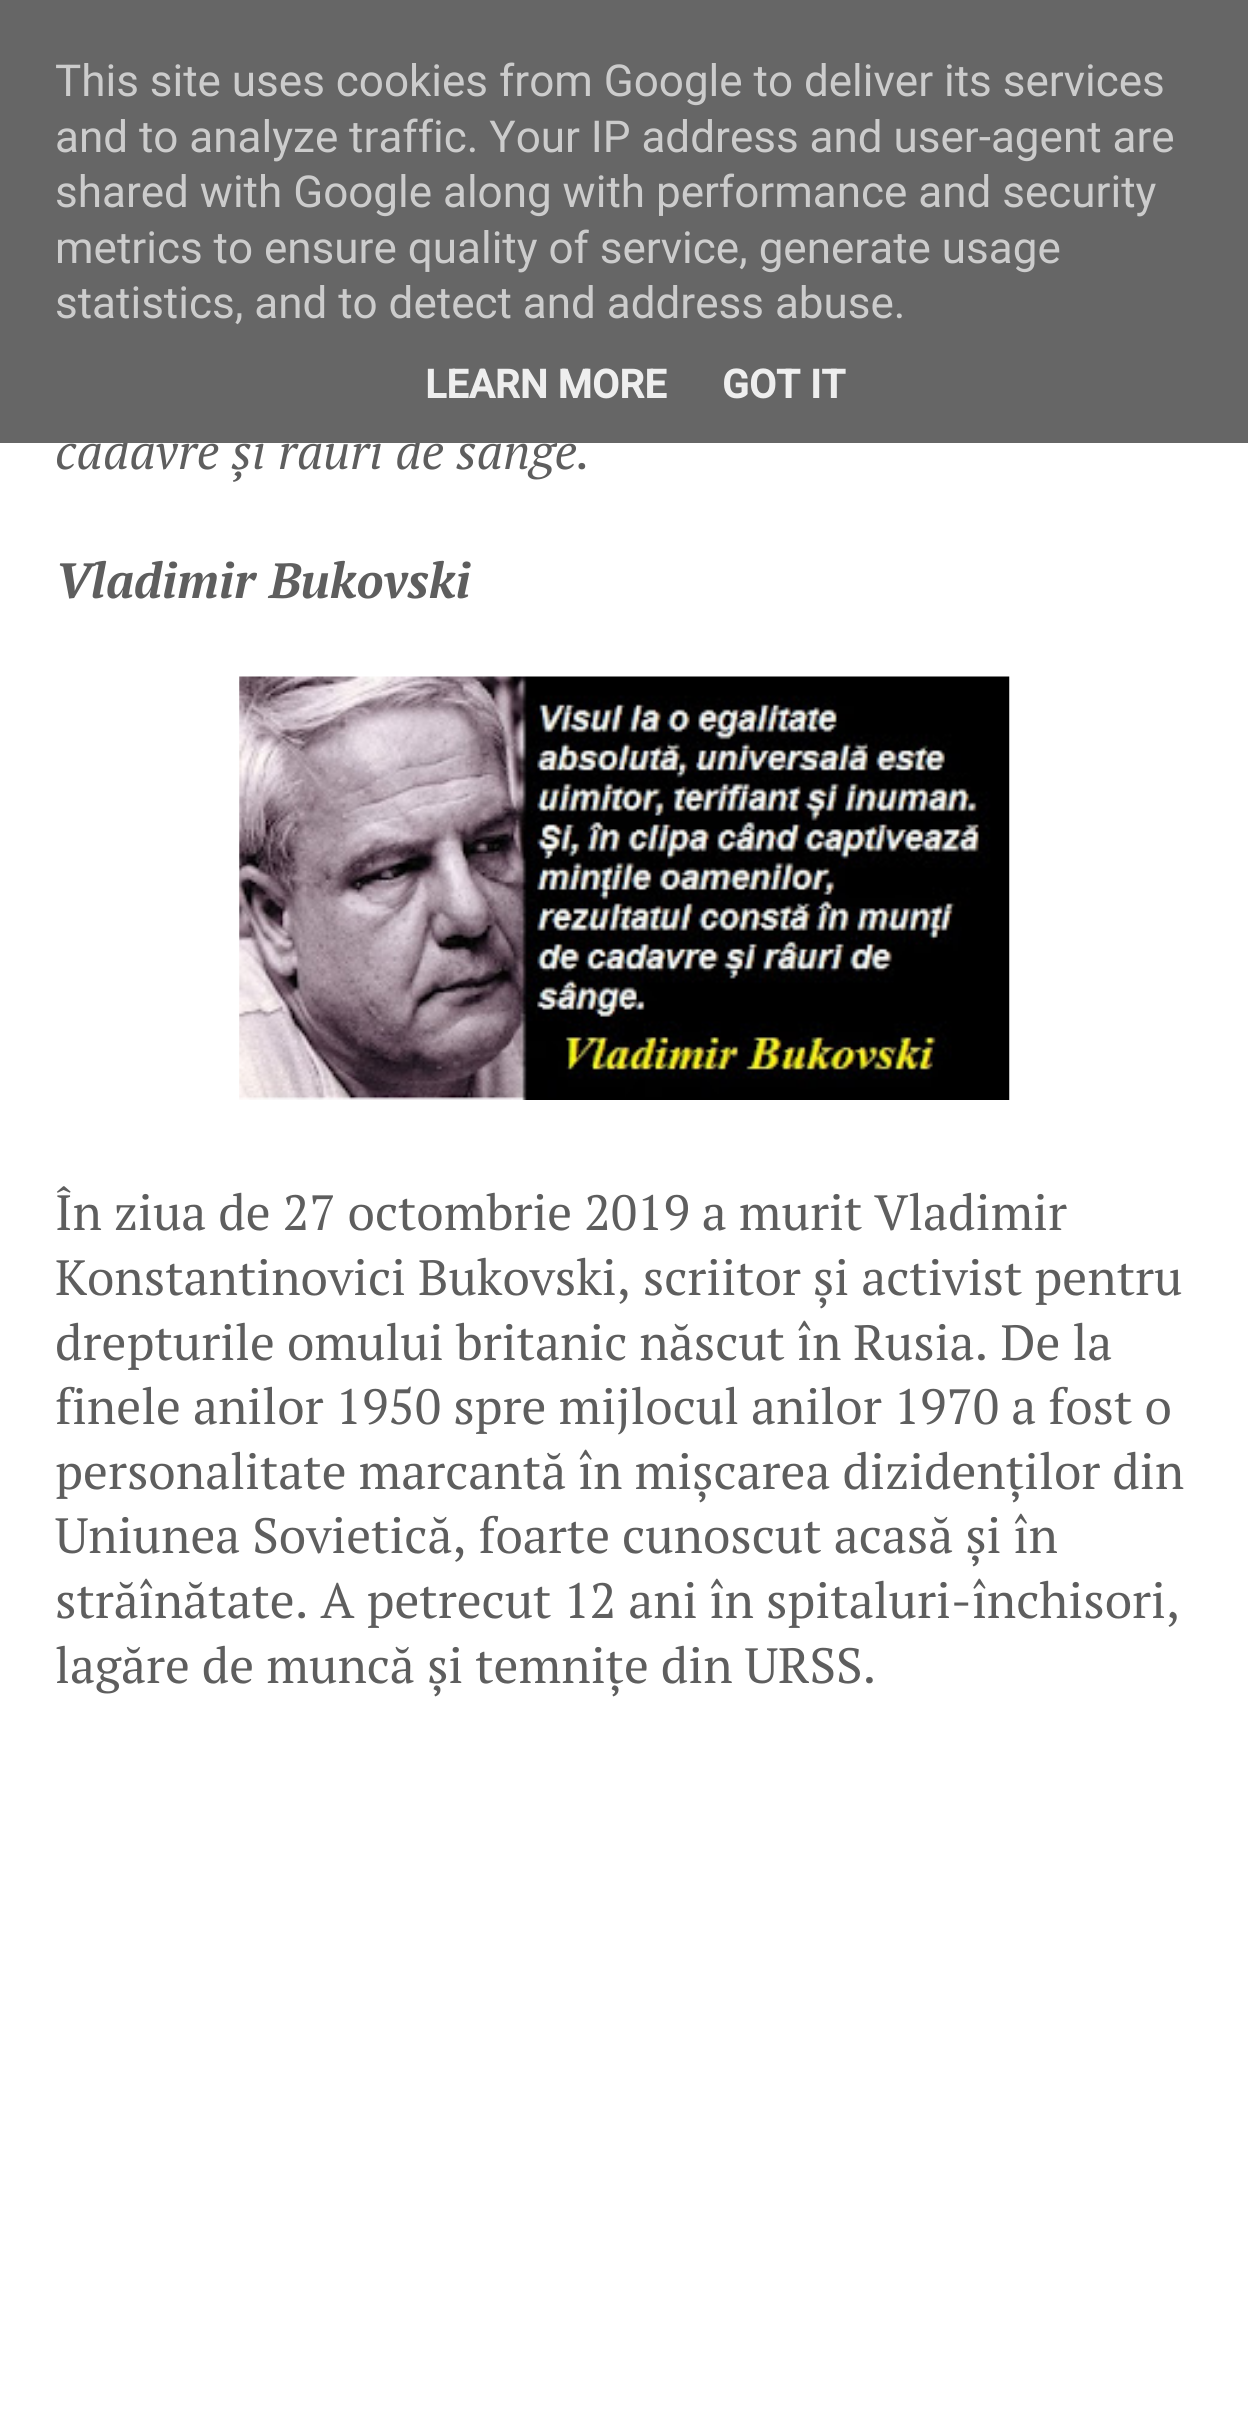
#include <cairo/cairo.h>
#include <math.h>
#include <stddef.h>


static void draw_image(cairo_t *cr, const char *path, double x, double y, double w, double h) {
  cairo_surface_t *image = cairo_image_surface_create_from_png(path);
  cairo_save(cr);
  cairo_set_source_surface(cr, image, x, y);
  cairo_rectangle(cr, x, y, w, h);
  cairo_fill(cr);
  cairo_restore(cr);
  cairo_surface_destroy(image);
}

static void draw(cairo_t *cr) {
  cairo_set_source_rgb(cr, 1, 1, 1);
  cairo_paint(cr);
  draw_image(cr, "images/1.png", 239, 676, 771, 424);
  cairo_select_font_face(cr, "PT Serif", CAIRO_FONT_SLANT_ITALIC, CAIRO_FONT_WEIGHT_NORMAL);
  cairo_set_font_size(cr, 49.5);
  cairo_set_source_rgb(cr, 94 / 255.0, 94 / 255.0, 94 / 255.0);
  cairo_move_to(cr, 55, 469);
  cairo_show_text(cr, "cadavre și râuri de sânge.");
  cairo_set_source_rgb(cr, 102 / 255.0, 102 / 255.0, 102 / 255.0);
  cairo_rectangle(cr, 0, 0, 1248, 443);
  cairo_fill(cr);
  cairo_select_font_face(cr, "Roboto", CAIRO_FONT_SLANT_NORMAL, CAIRO_FONT_WEIGHT_BOLD);
  cairo_set_font_size(cr, 39.5);
  cairo_set_source_rgb(cr, 238 / 255.0, 238 / 255.0, 238 / 255.0);
  cairo_move_to(cr, 722, 398);
  cairo_show_text(cr, "GOT IT");
  cairo_move_to(cr, 425, 398);
  cairo_show_text(cr, "LEARN MORE");
  cairo_select_font_face(cr, "Roboto", CAIRO_FONT_SLANT_NORMAL, CAIRO_FONT_WEIGHT_NORMAL);
  cairo_set_font_size(cr, 44);
  cairo_set_source_rgb(cr, 204 / 255.0, 204 / 255.0, 204 / 255.0);
  cairo_move_to(cr, 55, 318);
  cairo_show_text(cr, "statistics, and to detect and address abuse.");
  cairo_move_to(cr, 55, 263);
  cairo_show_text(cr, "metrics to ensure quality of service, generate usage");
  cairo_move_to(cr, 55, 207);
  cairo_show_text(cr, "shared with Google along with performance and security");
  cairo_move_to(cr, 55, 152);
  cairo_show_text(cr, "and to analyze traffic. Your IP address and user-agent are");
  cairo_move_to(cr, 55, 96);
  cairo_show_text(cr, "This site uses cookies from Google to deliver its services");
  cairo_select_font_face(cr, "PT Serif", CAIRO_FONT_SLANT_ITALIC, CAIRO_FONT_WEIGHT_BOLD);
  cairo_set_font_size(cr, 49.5);
  cairo_set_source_rgb(cr, 94 / 255.0, 94 / 255.0, 94 / 255.0);
  cairo_move_to(cr, 55, 598);
  cairo_show_text(cr, "Vladimir Bukovski");
  cairo_select_font_face(cr, "PT Serif", CAIRO_FONT_SLANT_NORMAL, CAIRO_FONT_WEIGHT_NORMAL);
  cairo_move_to(cr, 55, 1230);
  cairo_show_text(cr, "În ziua de 27 octombrie 2019 a murit Vladimir");
  cairo_move_to(cr, 55, 1295);
  cairo_show_text(cr, "Konstantinovici Bukovski, scriitor și activist pentru");
  cairo_move_to(cr, 55, 1360);
  cairo_show_text(cr, "drepturile omului britanic născut în Rusia. De la");
  cairo_move_to(cr, 55, 1424);
  cairo_show_text(cr, "finele anilor 1950 spre mijlocul anilor 1970 a fost o");
  cairo_move_to(cr, 55, 1489);
  cairo_show_text(cr, "personalitate marcantă în mișcarea dizidenților din");
  cairo_move_to(cr, 55, 1553);
  cairo_show_text(cr, "Uniunea Sovietică, foarte cunoscut acasă și în");
  cairo_move_to(cr, 55, 1618);
  cairo_show_text(cr, "străînătate. A petrecut 12 ani în spitaluri-închisori,");
  cairo_move_to(cr, 55, 1683);
  cairo_show_text(cr, "lagăre de muncă și temnițe din URSS.");
}

int main(void) {
  cairo_surface_t *surface = cairo_image_surface_create(CAIRO_FORMAT_RGB24, 1248, 2425);
  cairo_t *cr = cairo_create(surface);
  cairo_font_options_t *options = cairo_font_options_create();
  cairo_font_options_set_hint_metrics(options, CAIRO_HINT_METRICS_OFF);
  cairo_font_options_set_hint_style(options, CAIRO_HINT_STYLE_NONE);
  cairo_set_font_options(cr, options);
  cairo_set_miter_limit(cr, 4);
  draw(cr);
  cairo_surface_write_to_png(surface, "out.png");
  cairo_font_options_destroy(options);
  cairo_destroy(cr);
  cairo_surface_destroy(surface);
  return 0;
}
